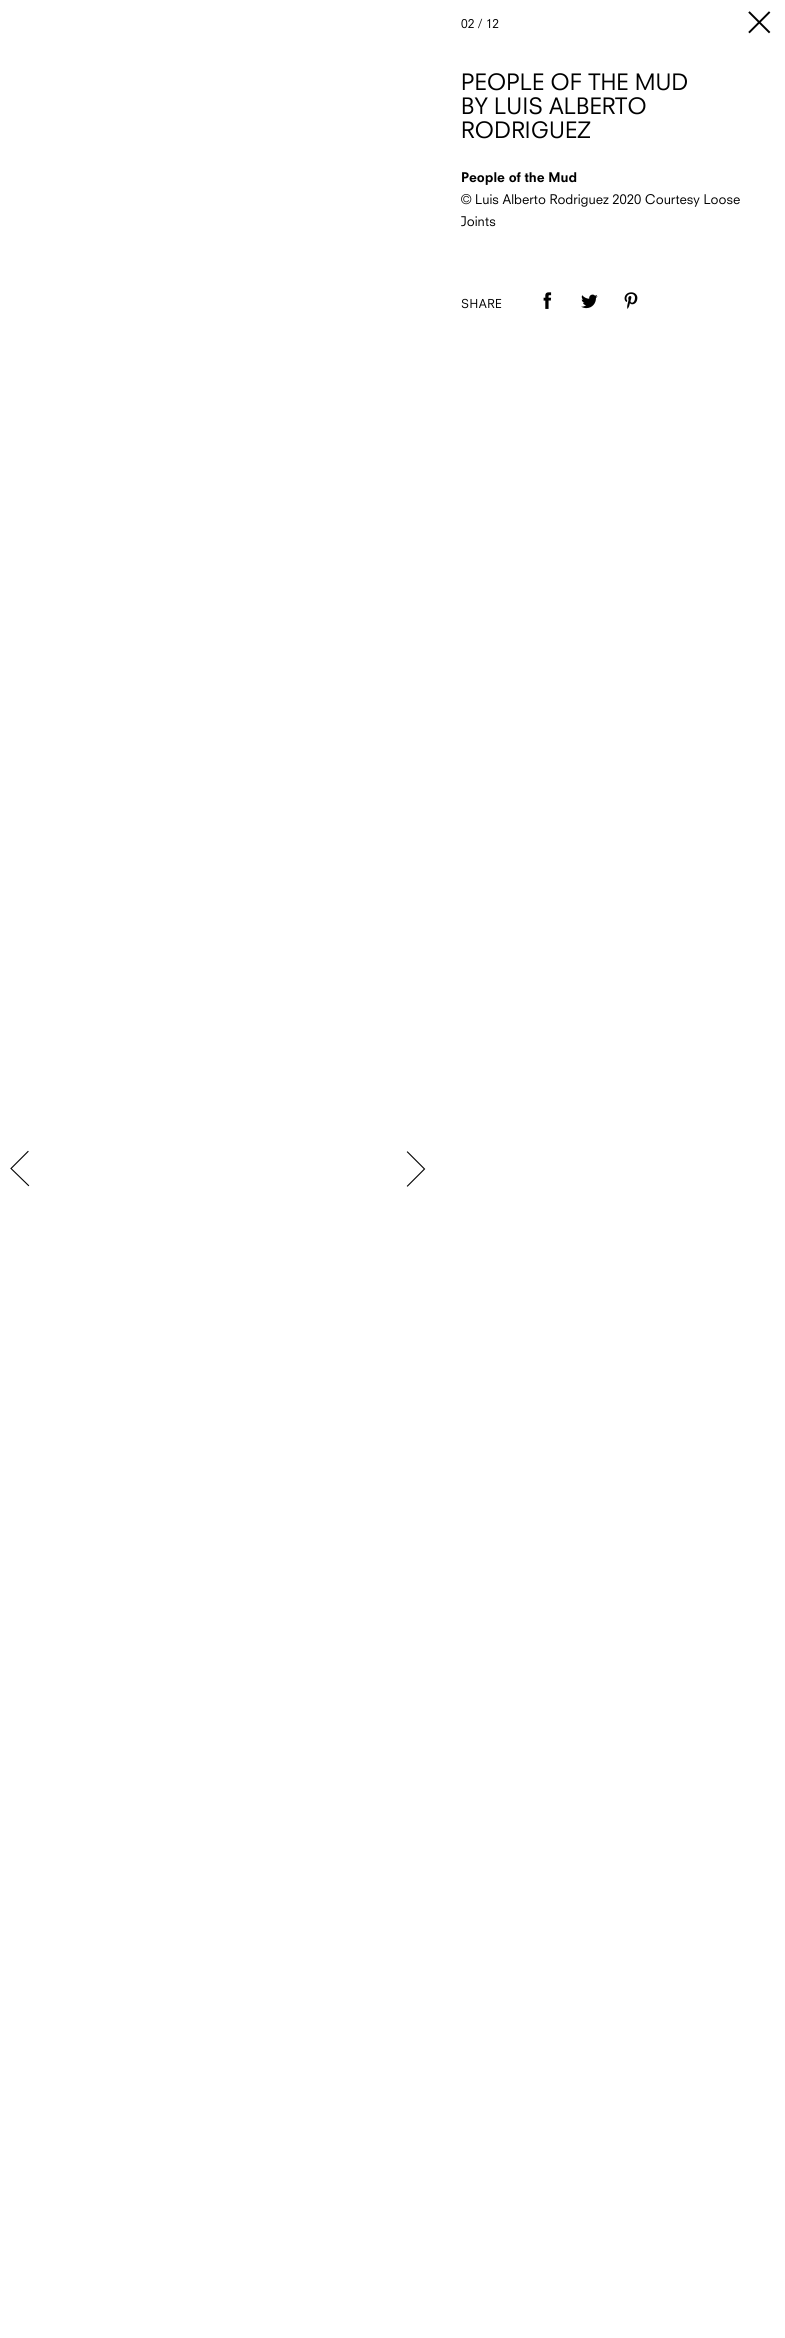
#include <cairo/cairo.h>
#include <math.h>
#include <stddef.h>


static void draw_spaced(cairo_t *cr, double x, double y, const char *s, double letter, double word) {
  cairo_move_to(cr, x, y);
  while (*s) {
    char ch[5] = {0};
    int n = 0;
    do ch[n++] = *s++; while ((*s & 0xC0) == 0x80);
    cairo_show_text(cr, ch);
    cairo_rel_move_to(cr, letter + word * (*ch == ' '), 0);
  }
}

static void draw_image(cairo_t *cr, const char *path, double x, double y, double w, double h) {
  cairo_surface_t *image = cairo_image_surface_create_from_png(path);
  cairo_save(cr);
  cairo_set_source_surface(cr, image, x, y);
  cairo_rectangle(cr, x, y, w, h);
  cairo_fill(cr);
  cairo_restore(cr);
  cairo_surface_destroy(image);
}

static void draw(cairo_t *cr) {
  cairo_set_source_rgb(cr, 1, 1, 1);
  cairo_paint(cr);
  draw_image(cr, "images/1.png", 748, 11, 23, 23);
  draw_image(cr, "images/2.png", 543, 292, 9, 17);
  draw_image(cr, "images/3.png", 581, 294, 17, 15);
  draw_image(cr, "images/4.png", 624, 292, 14, 17);
  cairo_new_path(cr);
  cairo_move_to(cr, 28, 1151.5);
  cairo_line_to(cr, 11, 1168.5);
  cairo_line_to(cr, 28.5, 1185.5);
  cairo_set_source_rgb(cr, 0, 0, 0);
  cairo_set_line_width(cr, 1.1);
  cairo_set_line_cap(cr, CAIRO_LINE_CAP_SQUARE);
  cairo_stroke(cr);
  cairo_new_path(cr);
  cairo_move_to(cr, 407.5, 1152);
  cairo_line_to(cr, 424.5, 1169);
  cairo_line_to(cr, 407.5, 1186);
  cairo_stroke(cr);
  cairo_select_font_face(cr, "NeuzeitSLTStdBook", CAIRO_FONT_SLANT_NORMAL, CAIRO_FONT_WEIGHT_NORMAL);
  cairo_set_font_size(cr, 12);
  cairo_move_to(cr, 461, 28);
  cairo_show_text(cr, "02 / 12");
  cairo_set_font_size(cr, 22);
  cairo_move_to(cr, 461, 90);
  cairo_show_text(cr, "PEOPLE OF THE MUD");
  cairo_move_to(cr, 461, 114);
  cairo_show_text(cr, "BY LUIS ALBERTO");
  cairo_move_to(cr, 461, 138);
  cairo_show_text(cr, "RODRIGUEZ");
  cairo_select_font_face(cr, "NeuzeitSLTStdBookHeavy", CAIRO_FONT_SLANT_NORMAL, CAIRO_FONT_WEIGHT_NORMAL);
  cairo_set_font_size(cr, 13);
  cairo_move_to(cr, 461, 182);
  cairo_show_text(cr, "People of the Mud");
  cairo_select_font_face(cr, "NeuzeitSLTStdBook", CAIRO_FONT_SLANT_NORMAL, CAIRO_FONT_WEIGHT_NORMAL);
  cairo_move_to(cr, 461, 204);
  cairo_show_text(cr, "© Luis Alberto Rodriguez 2020 Courtesy Loose");
  cairo_move_to(cr, 461, 226);
  cairo_show_text(cr, "Joints");
  cairo_set_font_size(cr, 12);
  draw_spaced(cr, 461, 308, "SHARE", 0.5, 0);
}

int main(void) {
  cairo_surface_t *surface = cairo_image_surface_create(CAIRO_FORMAT_RGB24, 785, 2338);
  cairo_t *cr = cairo_create(surface);
  cairo_font_options_t *options = cairo_font_options_create();
  cairo_font_options_set_hint_metrics(options, CAIRO_HINT_METRICS_OFF);
  cairo_font_options_set_hint_style(options, CAIRO_HINT_STYLE_NONE);
  cairo_set_font_options(cr, options);
  cairo_set_miter_limit(cr, 4);
  draw(cr);
  cairo_surface_write_to_png(surface, "out.png");
  cairo_font_options_destroy(options);
  cairo_destroy(cr);
  cairo_surface_destroy(surface);
  return 0;
}
